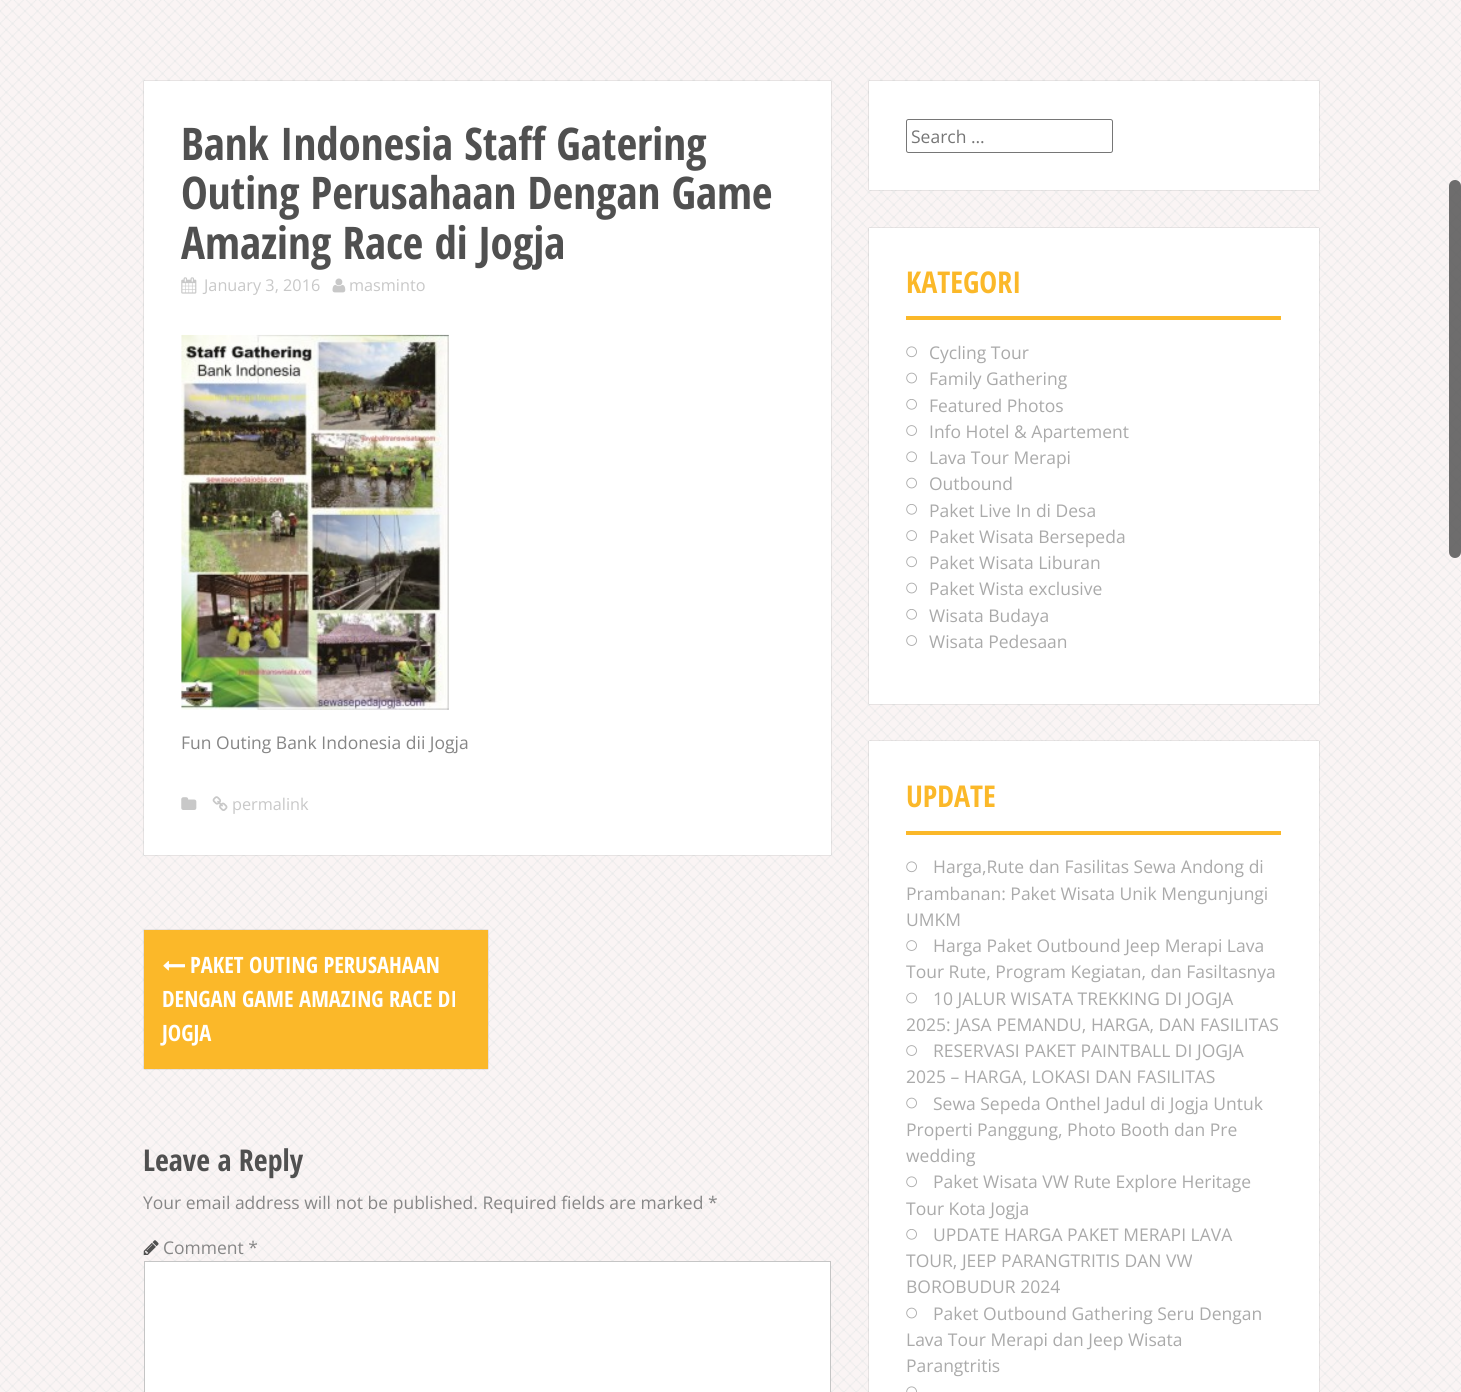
#include <cairo/cairo.h>
#include <math.h>
#include <stddef.h>


static void rounded_rect(cairo_t *cr, double x, double y, double w, double h, double r) {
  cairo_new_sub_path(cr);
  cairo_arc(cr, x + w - r, y + h - r, r, 0, M_PI / 2);
  cairo_arc(cr, x + r, y + h - r, r, M_PI / 2, M_PI);
  cairo_arc(cr, x + r, y + r, r, M_PI, 1.5 * M_PI);
  cairo_arc(cr, x + w - r, y + r, r, 1.5 * M_PI, 2 * M_PI);
  cairo_close_path(cr);
}

static void draw_shadow(cairo_t *cr, double x, double y, double w, double h, double r, double blur, double alpha) {
  cairo_push_group_with_content(cr, CAIRO_CONTENT_ALPHA);
  cairo_set_operator(cr, CAIRO_OPERATOR_SOURCE);
  for (int i = 15; i >= -15 && fmin(w, h) + blur * i / 3 > 0; i -= 2) {
    double e = blur * i / 6;
    cairo_set_source_rgba(cr, 0, 0, 0, alpha * erfc((i - 1) / 8.5) / 2);
    rounded_rect(cr, x - e, y - e, w + 2 * e, h + 2 * e, fmax(0, fmin(r + e + blur * .6, fmin(w, h) / 2 + e)));
    cairo_fill(cr);
  }
  cairo_pattern_t *soft = cairo_pop_group(cr);
  cairo_mask(cr, soft);
  cairo_pattern_destroy(soft);
}

static void draw_image(cairo_t *cr, const char *path, double x, double y, double w, double h) {
  cairo_surface_t *image = cairo_image_surface_create_from_png(path);
  cairo_save(cr);
  cairo_set_source_surface(cr, image, x, y);
  cairo_rectangle(cr, x, y, w, h);
  cairo_fill(cr);
  cairo_restore(cr);
  cairo_surface_destroy(image);
}

static void draw(cairo_t *cr) {
  cairo_set_source_rgb(cr, 250 / 255.0, 244 / 255.0, 244 / 255.0);
  cairo_paint(cr);
  draw_image(cr, "images/1.png", 0, 0, 1461, 1392);
  cairo_set_source_rgb(cr, 173 / 255.0, 173 / 255.0, 173 / 255.0);
  draw_shadow(cr, 144, 81, 687, 774, 0, 0.5, 1);
  cairo_set_source_rgb(cr, 1, 1, 1);
  cairo_rectangle(cr, 144, 81, 687, 774);
  cairo_fill(cr);
  draw_image(cr, "images/2.png", 181, 277, 16, 17);
  draw_image(cr, "images/3.png", 332, 278, 14, 15);
  draw_image(cr, "images/4.png", 181, 334, 268, 376);
  draw_image(cr, "images/5.png", 181, 797, 16, 13);
  draw_image(cr, "images/6.png", 212, 796, 16, 15);
  cairo_set_source_rgb(cr, 173 / 255.0, 173 / 255.0, 173 / 255.0);
  draw_shadow(cr, 144, 930, 344, 139, 0, 0.5, 1);
  cairo_set_source_rgb(cr, 251 / 255.0, 184 / 255.0, 41 / 255.0);
  cairo_rectangle(cr, 144, 930, 344, 139);
  cairo_fill(cr);
  draw_image(cr, "images/7.png", 163, 961, 22, 10);
  draw_image(cr, "images/8.png", 143, 1240, 16, 15);
  cairo_set_source_rgb(cr, 1, 1, 1);
  cairo_rectangle(cr, 144.5, 1261.5, 686, 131);
  cairo_fill_preserve(cr);
  cairo_set_source_rgb(cr, 197 / 255.0, 197 / 255.0, 197 / 255.0);
  cairo_set_line_width(cr, 1);
  cairo_stroke(cr);
  cairo_set_source_rgb(cr, 173 / 255.0, 173 / 255.0, 173 / 255.0);
  draw_shadow(cr, 869, 81, 450, 109, 0, 0.5, 1);
  cairo_set_source_rgb(cr, 1, 1, 1);
  cairo_rectangle(cr, 869, 81, 450, 109);
  cairo_fill(cr);
  rounded_rect(cr, 906.5, 119.5, 206, 33, 2);
  cairo_set_source_rgb(cr, 118 / 255.0, 118 / 255.0, 118 / 255.0);
  cairo_stroke(cr);
  cairo_set_source_rgb(cr, 173 / 255.0, 173 / 255.0, 173 / 255.0);
  draw_shadow(cr, 869, 228, 450, 476, 0, 0.5, 1);
  cairo_set_source_rgb(cr, 1, 1, 1);
  cairo_rectangle(cr, 869, 228, 450, 476);
  cairo_fill(cr);
  cairo_set_source_rgb(cr, 251 / 255.0, 184 / 255.0, 41 / 255.0);
  cairo_rectangle(cr, 906, 316, 375, 4);
  cairo_fill(cr);
  draw_image(cr, "images/9.png", 906, 346, 11, 12);
  draw_image(cr, "images/10.png", 906, 372, 11, 12);
  draw_image(cr, "images/11.png", 906, 399, 11, 11);
  draw_image(cr, "images/12.png", 906, 425, 11, 11);
  draw_image(cr, "images/9.png", 906, 451, 11, 12);
  draw_image(cr, "images/10.png", 906, 477, 11, 12);
  draw_image(cr, "images/11.png", 906, 504, 11, 11);
  draw_image(cr, "images/12.png", 906, 530, 11, 11);
  draw_image(cr, "images/9.png", 906, 556, 11, 12);
  draw_image(cr, "images/10.png", 906, 582, 11, 12);
  draw_image(cr, "images/11.png", 906, 609, 11, 11);
  draw_image(cr, "images/12.png", 906, 635, 11, 11);
  cairo_set_source_rgb(cr, 173 / 255.0, 173 / 255.0, 173 / 255.0);
  draw_shadow(cr, 869, 741, 450, 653, 0, 0.5, 1);
  cairo_set_source_rgb(cr, 1, 1, 1);
  cairo_rectangle(cr, 869, 741, 450, 651);
  cairo_fill(cr);
  cairo_set_source_rgb(cr, 251 / 255.0, 184 / 255.0, 41 / 255.0);
  cairo_rectangle(cr, 906, 831, 375, 4);
  cairo_fill(cr);
  draw_image(cr, "images/9.png", 906, 861, 11, 12);
  draw_image(cr, "images/12.png", 906, 940, 11, 11);
  draw_image(cr, "images/10.png", 906, 992, 11, 12);
  draw_image(cr, "images/12.png", 906, 1045, 11, 11);
  draw_image(cr, "images/10.png", 906, 1097, 11, 12);
  draw_image(cr, "images/9.png", 906, 1176, 11, 12);
  draw_image(cr, "images/11.png", 906, 1229, 11, 11);
  draw_image(cr, "images/10.png", 906, 1307, 11, 12);
  draw_image(cr, "images/13.png", 906, 1386, 11, 6);
  cairo_set_source_rgba(cr, 82 / 255.0, 82 / 255.0, 82 / 255.0, 0.83);
  rounded_rect(cr, 1449, 180, 12, 378, 6);
  cairo_fill(cr);
  cairo_select_font_face(cr, "Open Sans Condensed", CAIRO_FONT_SLANT_NORMAL, CAIRO_FONT_WEIGHT_BOLD);
  cairo_set_font_size(cr, 45);
  cairo_set_source_rgb(cr, 80 / 255.0, 80 / 255.0, 80 / 255.0);
  cairo_move_to(cr, 181, 160);
  cairo_show_text(cr, "Bank Indonesia Staff Gatering");
  cairo_move_to(cr, 181, 209);
  cairo_show_text(cr, "Outing Perusahaan Dengan Game");
  cairo_move_to(cr, 181, 259);
  cairo_show_text(cr, "Amazing Race di Jogja");
  cairo_select_font_face(cr, "Open Sans", CAIRO_FONT_SLANT_NORMAL, CAIRO_FONT_WEIGHT_NORMAL);
  cairo_set_font_size(cr, 16.25);
  cairo_set_source_rgb(cr, 200 / 255.0, 200 / 255.0, 200 / 255.0);
  cairo_move_to(cr, 204, 291);
  cairo_show_text(cr, "January 3, 2016");
  cairo_move_to(cr, 349, 291);
  cairo_show_text(cr, "masminto");
  cairo_set_font_size(cr, 17.5);
  cairo_set_source_rgb(cr, 134 / 255.0, 134 / 255.0, 134 / 255.0);
  cairo_move_to(cr, 181, 749);
  cairo_show_text(cr, "Fun Outing Bank Indonesia dii Jogja");
  cairo_set_font_size(cr, 16.25);
  cairo_set_source_rgb(cr, 200 / 255.0, 200 / 255.0, 200 / 255.0);
  cairo_move_to(cr, 232, 810);
  cairo_show_text(cr, "permalink");
  cairo_select_font_face(cr, "Open Sans Condensed", CAIRO_FONT_SLANT_NORMAL, CAIRO_FONT_WEIGHT_BOLD);
  cairo_set_font_size(cr, 22.5);
  cairo_set_source_rgb(cr, 1, 1, 1);
  cairo_move_to(cr, 190, 973);
  cairo_show_text(cr, "PAKET OUTING PERUSAHAAN");
  cairo_move_to(cr, 162, 1007);
  cairo_show_text(cr, "DENGAN GAME AMAZING RACE DI");
  cairo_move_to(cr, 162, 1041);
  cairo_show_text(cr, "JOGJA");
  cairo_set_font_size(cr, 30);
  cairo_set_source_rgb(cr, 80 / 255.0, 80 / 255.0, 80 / 255.0);
  cairo_move_to(cr, 143, 1171);
  cairo_show_text(cr, "Leave a Reply");
  cairo_select_font_face(cr, "Open Sans", CAIRO_FONT_SLANT_NORMAL, CAIRO_FONT_WEIGHT_NORMAL);
  cairo_set_font_size(cr, 17.5);
  cairo_set_source_rgb(cr, 134 / 255.0, 134 / 255.0, 134 / 255.0);
  cairo_move_to(cr, 143, 1209);
  cairo_show_text(cr, "Your email address will not be published. Required fields are marked *");
  cairo_move_to(cr, 163, 1254);
  cairo_show_text(cr, "Comment *");
  cairo_set_source_rgb(cr, 117 / 255.0, 117 / 255.0, 117 / 255.0);
  cairo_move_to(cr, 911, 143);
  cairo_show_text(cr, "Search …");
  cairo_select_font_face(cr, "Open Sans Condensed", CAIRO_FONT_SLANT_NORMAL, CAIRO_FONT_WEIGHT_BOLD);
  cairo_set_font_size(cr, 30);
  cairo_set_source_rgb(cr, 251 / 255.0, 184 / 255.0, 41 / 255.0);
  cairo_move_to(cr, 906, 293);
  cairo_show_text(cr, "KATEGORI");
  cairo_select_font_face(cr, "Open Sans", CAIRO_FONT_SLANT_NORMAL, CAIRO_FONT_WEIGHT_NORMAL);
  cairo_set_font_size(cr, 17.5);
  cairo_set_source_rgb(cr, 170 / 255.0, 170 / 255.0, 170 / 255.0);
  cairo_move_to(cr, 929, 359);
  cairo_show_text(cr, "Cycling Tour");
  cairo_move_to(cr, 929, 385);
  cairo_show_text(cr, "Family Gathering");
  cairo_move_to(cr, 929, 412);
  cairo_show_text(cr, "Featured Photos");
  cairo_move_to(cr, 929, 438);
  cairo_show_text(cr, "Info Hotel & Apartement");
  cairo_move_to(cr, 929, 464);
  cairo_show_text(cr, "Lava Tour Merapi");
  cairo_move_to(cr, 929, 490);
  cairo_show_text(cr, "Outbound");
  cairo_move_to(cr, 929, 517);
  cairo_show_text(cr, "Paket Live In di Desa");
  cairo_move_to(cr, 929, 543);
  cairo_show_text(cr, "Paket Wisata Bersepeda");
  cairo_move_to(cr, 929, 569);
  cairo_show_text(cr, "Paket Wisata Liburan");
  cairo_move_to(cr, 929, 595);
  cairo_show_text(cr, "Paket Wista exclusive");
  cairo_move_to(cr, 929, 622);
  cairo_show_text(cr, "Wisata Budaya");
  cairo_move_to(cr, 929, 648);
  cairo_show_text(cr, "Wisata Pedesaan");
  cairo_select_font_face(cr, "Open Sans Condensed", CAIRO_FONT_SLANT_NORMAL, CAIRO_FONT_WEIGHT_BOLD);
  cairo_set_font_size(cr, 30);
  cairo_set_source_rgb(cr, 251 / 255.0, 184 / 255.0, 41 / 255.0);
  cairo_move_to(cr, 906, 807);
  cairo_show_text(cr, "UPDATE");
  cairo_select_font_face(cr, "Open Sans", CAIRO_FONT_SLANT_NORMAL, CAIRO_FONT_WEIGHT_NORMAL);
  cairo_set_font_size(cr, 17.5);
  cairo_set_source_rgb(cr, 170 / 255.0, 170 / 255.0, 170 / 255.0);
  cairo_move_to(cr, 933, 873);
  cairo_show_text(cr, "Harga,Rute dan Fasilitas Sewa Andong di");
  cairo_move_to(cr, 906, 900);
  cairo_show_text(cr, "Prambanan: Paket Wisata Unik Mengunjungi");
  cairo_move_to(cr, 906, 926);
  cairo_show_text(cr, "UMKM");
  cairo_move_to(cr, 933, 952);
  cairo_show_text(cr, "Harga Paket Outbound Jeep Merapi Lava");
  cairo_move_to(cr, 906, 978);
  cairo_show_text(cr, "Tour Rute, Program Kegiatan, dan Fasiltasnya");
  cairo_move_to(cr, 933, 1005);
  cairo_show_text(cr, "10 JALUR WISATA TREKKING DI JOGJA");
  cairo_move_to(cr, 906, 1031);
  cairo_show_text(cr, "2025: JASA PEMANDU, HARGA, DAN FASILITAS");
  cairo_move_to(cr, 933, 1057);
  cairo_show_text(cr, "RESERVASI PAKET PAINTBALL DI JOGJA");
  cairo_move_to(cr, 906, 1083);
  cairo_show_text(cr, "2025 – HARGA, LOKASI DAN FASILITAS");
  cairo_move_to(cr, 933, 1110);
  cairo_show_text(cr, "Sewa Sepeda Onthel Jadul di Jogja Untuk");
  cairo_move_to(cr, 906, 1136);
  cairo_show_text(cr, "Properti Panggung, Photo Booth dan Pre");
  cairo_move_to(cr, 906, 1162);
  cairo_show_text(cr, "wedding");
  cairo_move_to(cr, 933, 1188);
  cairo_show_text(cr, "Paket Wisata VW Rute Explore Heritage");
  cairo_move_to(cr, 906, 1215);
  cairo_show_text(cr, "Tour Kota Jogja");
  cairo_move_to(cr, 933, 1241);
  cairo_show_text(cr, "UPDATE HARGA PAKET MERAPI LAVA");
  cairo_move_to(cr, 906, 1267);
  cairo_show_text(cr, "TOUR, JEEP PARANGTRITIS DAN VW");
  cairo_move_to(cr, 906, 1293);
  cairo_show_text(cr, "BOROBUDUR 2024");
  cairo_move_to(cr, 933, 1320);
  cairo_show_text(cr, "Paket Outbound Gathering Seru Dengan");
  cairo_move_to(cr, 906, 1346);
  cairo_show_text(cr, "Lava Tour Merapi dan Jeep Wisata");
  cairo_move_to(cr, 906, 1372);
  cairo_show_text(cr, "Parangtritis");
}

int main(void) {
  cairo_surface_t *surface = cairo_image_surface_create(CAIRO_FORMAT_RGB24, 1461, 1392);
  cairo_t *cr = cairo_create(surface);
  cairo_font_options_t *options = cairo_font_options_create();
  cairo_font_options_set_hint_metrics(options, CAIRO_HINT_METRICS_OFF);
  cairo_font_options_set_hint_style(options, CAIRO_HINT_STYLE_NONE);
  cairo_set_font_options(cr, options);
  cairo_set_miter_limit(cr, 4);
  draw(cr);
  cairo_surface_write_to_png(surface, "out.png");
  cairo_font_options_destroy(options);
  cairo_destroy(cr);
  cairo_surface_destroy(surface);
  return 0;
}
